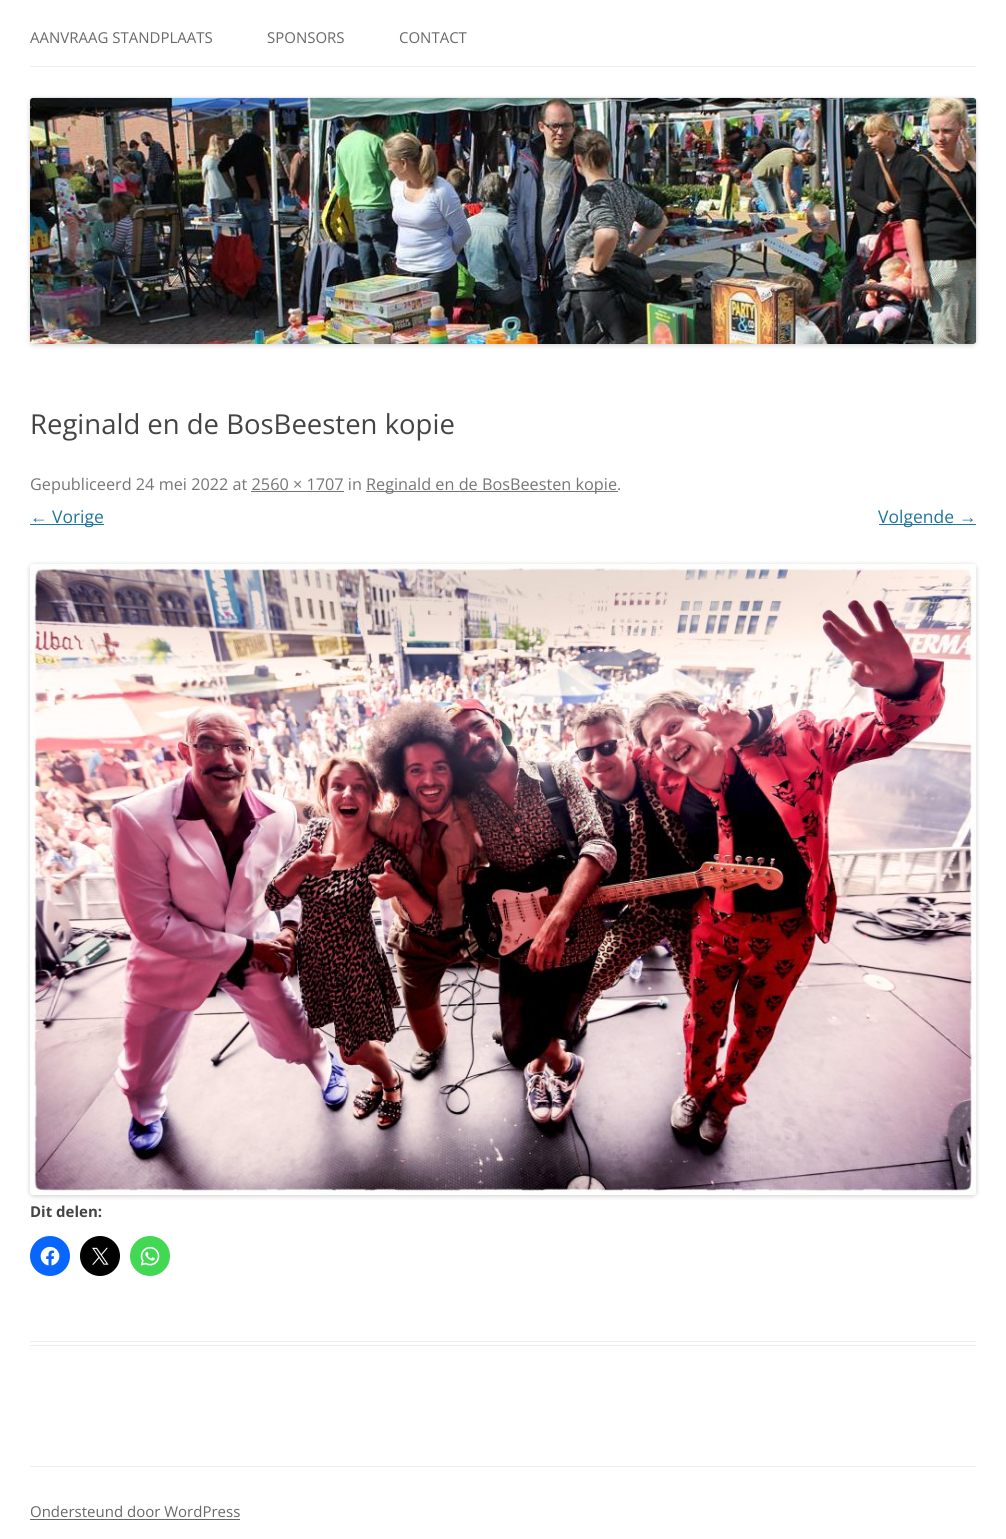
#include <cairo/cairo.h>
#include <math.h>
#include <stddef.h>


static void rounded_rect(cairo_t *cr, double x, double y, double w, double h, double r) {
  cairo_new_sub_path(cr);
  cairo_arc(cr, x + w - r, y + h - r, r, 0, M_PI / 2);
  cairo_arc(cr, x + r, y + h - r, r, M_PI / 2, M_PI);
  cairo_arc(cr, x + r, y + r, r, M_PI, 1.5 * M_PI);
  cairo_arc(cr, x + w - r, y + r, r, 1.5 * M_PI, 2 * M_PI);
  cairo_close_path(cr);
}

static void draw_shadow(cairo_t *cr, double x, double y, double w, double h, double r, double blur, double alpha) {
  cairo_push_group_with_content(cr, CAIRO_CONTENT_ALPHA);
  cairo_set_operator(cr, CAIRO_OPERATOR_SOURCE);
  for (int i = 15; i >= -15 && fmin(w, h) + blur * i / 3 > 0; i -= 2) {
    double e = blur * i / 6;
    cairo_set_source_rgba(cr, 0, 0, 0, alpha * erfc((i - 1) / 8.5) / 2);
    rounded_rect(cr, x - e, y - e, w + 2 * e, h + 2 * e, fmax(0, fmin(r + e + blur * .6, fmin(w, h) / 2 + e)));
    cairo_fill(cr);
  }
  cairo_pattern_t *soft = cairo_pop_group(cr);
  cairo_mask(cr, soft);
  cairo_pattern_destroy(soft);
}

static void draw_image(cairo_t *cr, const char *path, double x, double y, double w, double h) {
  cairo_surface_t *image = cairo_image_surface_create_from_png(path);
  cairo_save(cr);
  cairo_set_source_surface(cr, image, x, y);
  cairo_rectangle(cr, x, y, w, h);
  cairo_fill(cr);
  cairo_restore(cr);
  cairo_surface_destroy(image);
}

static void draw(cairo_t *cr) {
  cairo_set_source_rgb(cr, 1, 1, 1);
  cairo_paint(cr);
  cairo_set_source_rgb(cr, 237 / 255.0, 237 / 255.0, 237 / 255.0);
  cairo_rectangle(cr, 30, 66, 946, 1);
  cairo_fill(cr);
  cairo_set_source_rgb(cr, 0, 0, 0);
  draw_shadow(cr, 30, 99, 946, 246, 4, 2.5, 0.2);
  draw_image(cr, "images/1.png", 30, 97, 947, 247);
  cairo_set_source_rgb(cr, 237 / 255.0, 237 / 255.0, 237 / 255.0);
  cairo_rectangle(cr, 30, 1341, 946, 1);
  cairo_fill(cr);
  cairo_rectangle(cr, 30, 1345, 946, 1);
  cairo_fill(cr);
  cairo_set_source_rgb(cr, 117 / 255.0, 117 / 255.0, 117 / 255.0);
  cairo_rectangle(cr, 366, 491, 252, 1);
  cairo_fill(cr);
  cairo_rectangle(cr, 251, 491, 93, 1);
  cairo_fill(cr);
  cairo_set_source_rgb(cr, 33 / 255.0, 117 / 255.0, 155 / 255.0);
  cairo_rectangle(cr, 30, 524, 74, 1);
  cairo_fill(cr);
  cairo_rectangle(cr, 879, 524, 97, 1);
  cairo_fill(cr);
  cairo_set_source_rgb(cr, 0, 0, 0);
  draw_shadow(cr, 30, 565, 946, 631, 4, 2.5, 0.2);
  draw_image(cr, "images/2.png", 30, 564, 946, 631);
  cairo_set_source_rgb(cr, 8 / 255.0, 102 / 255.0, 1);
  cairo_arc(cr, 50, 1256, 20, 0, 2 * M_PI);
  cairo_fill(cr);
  draw_image(cr, "images/3.png", 40, 1246, 20, 20);
  cairo_set_source_rgb(cr, 0, 0, 0);
  cairo_arc(cr, 100, 1256, 20, 0, 2 * M_PI);
  cairo_fill(cr);
  draw_image(cr, "images/4.png", 92, 1247, 17, 18);
  cairo_set_source_rgb(cr, 67 / 255.0, 216 / 255.0, 84 / 255.0);
  cairo_arc(cr, 150, 1256, 20, 0, 2 * M_PI);
  cairo_fill(cr);
  draw_image(cr, "images/5.png", 140, 1246, 20, 20);
  cairo_set_source_rgb(cr, 237 / 255.0, 237 / 255.0, 237 / 255.0);
  cairo_rectangle(cr, 30, 1466, 946, 1);
  cairo_fill(cr);
  cairo_set_source_rgb(cr, 104 / 255.0, 104 / 255.0, 104 / 255.0);
  cairo_rectangle(cr, 30, 1519, 210, 1);
  cairo_fill(cr);
  cairo_select_font_face(cr, "Open Sans", CAIRO_FONT_SLANT_NORMAL, CAIRO_FONT_WEIGHT_NORMAL);
  cairo_set_font_size(cr, 15);
  cairo_move_to(cr, 30, 43);
  cairo_show_text(cr, "AANVRAAG STANDPLAATS");
  cairo_move_to(cr, 267, 43);
  cairo_show_text(cr, "SPONSORS");
  cairo_move_to(cr, 399, 43);
  cairo_show_text(cr, "CONTACT");
  cairo_set_font_size(cr, 27.5);
  cairo_set_source_rgb(cr, 68 / 255.0, 68 / 255.0, 68 / 255.0);
  cairo_move_to(cr, 30, 434);
  cairo_show_text(cr, "Reginald en de BosBeesten kopie");
  cairo_set_font_size(cr, 16.25);
  cairo_set_source_rgb(cr, 117 / 255.0, 117 / 255.0, 117 / 255.0);
  cairo_move_to(cr, 30, 490);
  cairo_show_text(cr, "Gepubliceerd 24 mei 2022 at 2560 × 1707 in");
  cairo_move_to(cr, 366, 490);
  cairo_show_text(cr, "Reginald en de BosBeesten kopie.");
  cairo_select_font_face(cr, "Liberation Sans", CAIRO_FONT_SLANT_NORMAL, CAIRO_FONT_WEIGHT_NORMAL);
  cairo_set_font_size(cr, 17.5);
  cairo_set_source_rgb(cr, 33 / 255.0, 117 / 255.0, 155 / 255.0);
  cairo_move_to(cr, 30, 523);
  cairo_show_text(cr, "←");
  cairo_select_font_face(cr, "Open Sans", CAIRO_FONT_SLANT_NORMAL, CAIRO_FONT_WEIGHT_NORMAL);
  cairo_move_to(cr, 52, 523);
  cairo_show_text(cr, "Vorige");
  cairo_move_to(cr, 878, 523);
  cairo_show_text(cr, "Volgende");
  cairo_select_font_face(cr, "Liberation Sans", CAIRO_FONT_SLANT_NORMAL, CAIRO_FONT_WEIGHT_NORMAL);
  cairo_move_to(cr, 959, 523);
  cairo_show_text(cr, "→");
  cairo_select_font_face(cr, "Open Sans", CAIRO_FONT_SLANT_NORMAL, CAIRO_FONT_WEIGHT_BOLD);
  cairo_set_font_size(cr, 15);
  cairo_set_source_rgb(cr, 68 / 255.0, 68 / 255.0, 68 / 255.0);
  cairo_move_to(cr, 30, 1217);
  cairo_show_text(cr, "Dit delen:");
  cairo_select_font_face(cr, "Open Sans", CAIRO_FONT_SLANT_NORMAL, CAIRO_FONT_WEIGHT_NORMAL);
  cairo_set_source_rgb(cr, 104 / 255.0, 104 / 255.0, 104 / 255.0);
  cairo_move_to(cr, 30, 1517);
  cairo_show_text(cr, "Ondersteund door WordPress");
}

int main(void) {
  cairo_surface_t *surface = cairo_image_surface_create(CAIRO_FORMAT_RGB24, 1006, 1539);
  cairo_t *cr = cairo_create(surface);
  cairo_font_options_t *options = cairo_font_options_create();
  cairo_font_options_set_hint_metrics(options, CAIRO_HINT_METRICS_OFF);
  cairo_font_options_set_hint_style(options, CAIRO_HINT_STYLE_NONE);
  cairo_set_font_options(cr, options);
  cairo_set_miter_limit(cr, 4);
  draw(cr);
  cairo_surface_write_to_png(surface, "out.png");
  cairo_font_options_destroy(options);
  cairo_destroy(cr);
  cairo_surface_destroy(surface);
  return 0;
}
